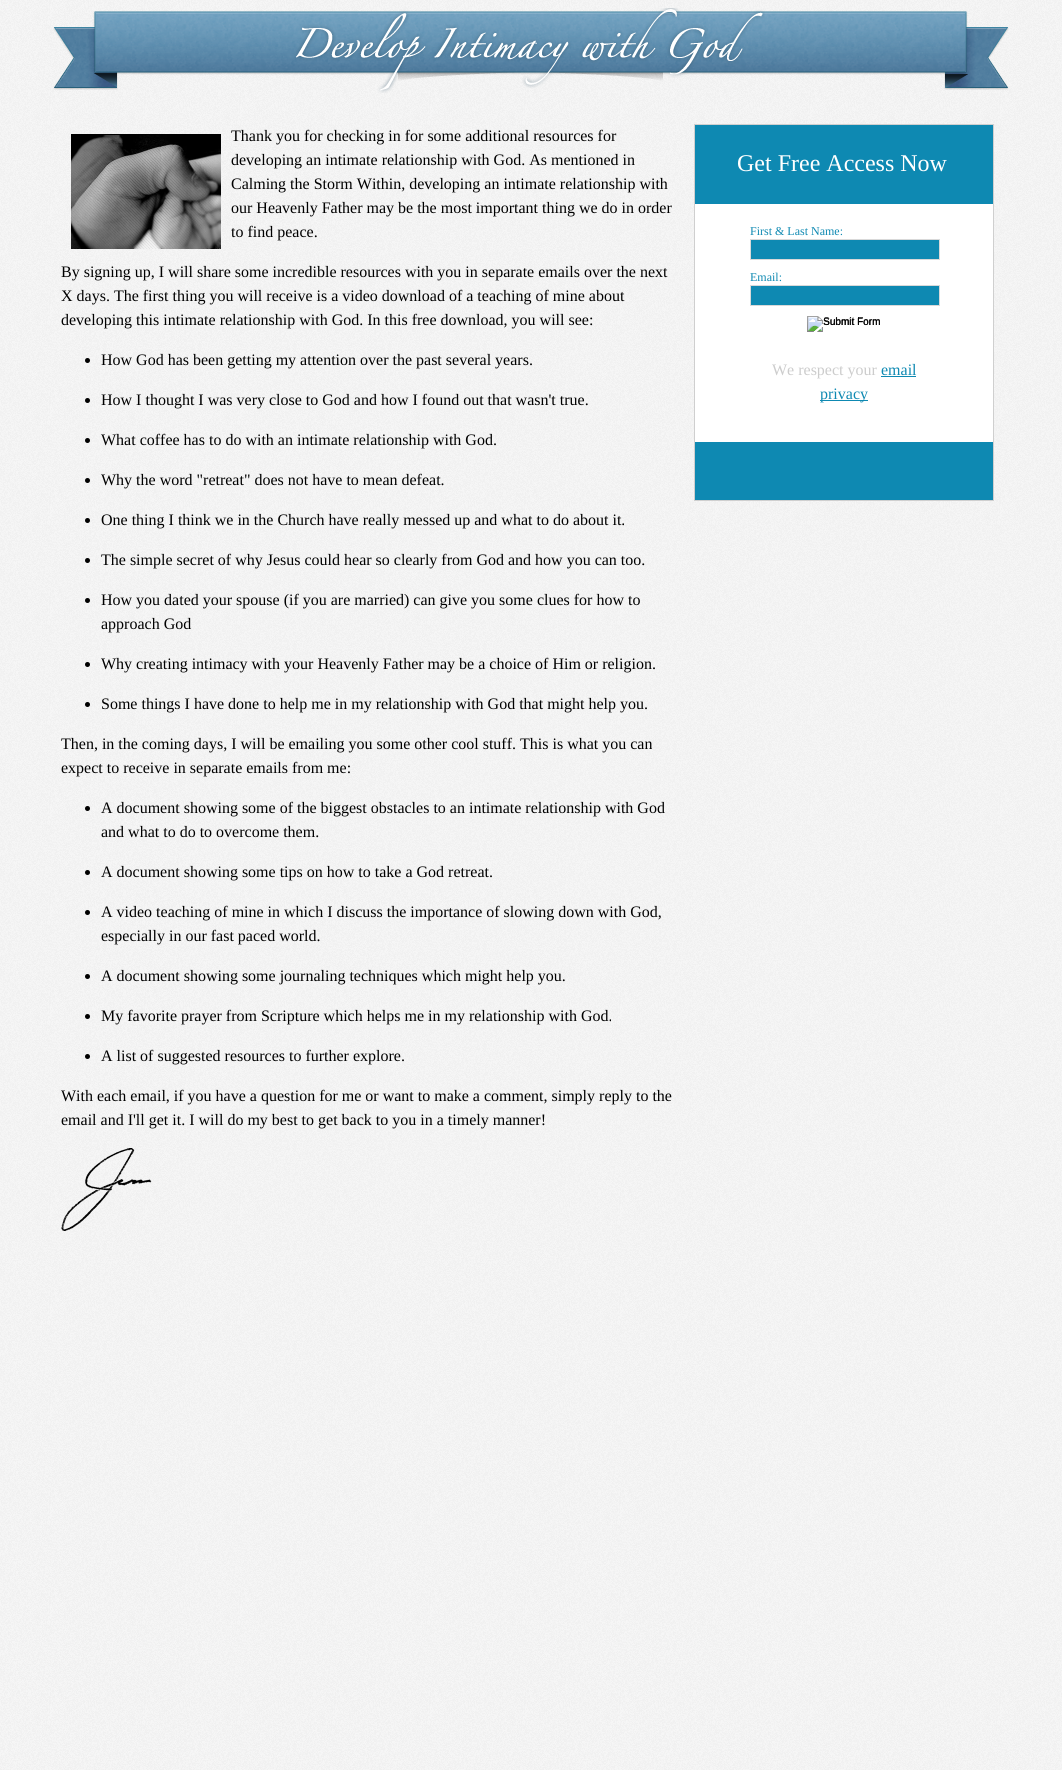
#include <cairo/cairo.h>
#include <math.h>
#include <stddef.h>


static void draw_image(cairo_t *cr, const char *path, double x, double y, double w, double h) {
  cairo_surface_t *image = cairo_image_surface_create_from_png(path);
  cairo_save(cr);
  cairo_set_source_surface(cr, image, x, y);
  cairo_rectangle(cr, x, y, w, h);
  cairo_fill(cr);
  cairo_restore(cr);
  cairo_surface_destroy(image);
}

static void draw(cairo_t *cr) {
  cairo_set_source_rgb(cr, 1, 1, 1);
  cairo_paint(cr);
  draw_image(cr, "images/1.png", 0, 0, 1062, 1770);
  draw_image(cr, "images/2.png", 53, 8, 956, 85);
  draw_image(cr, "images/3.png", 71, 134, 150, 115);
  cairo_set_source_rgb(cr, 0, 0, 0);
  cairo_arc(cr, 87.5, 360.5, 2.5, 0, 2 * M_PI);
  cairo_fill(cr);
  cairo_arc(cr, 87.5, 400.5, 2.5, 0, 2 * M_PI);
  cairo_fill(cr);
  cairo_arc(cr, 87.5, 440.5, 2.5, 0, 2 * M_PI);
  cairo_fill(cr);
  cairo_arc(cr, 87.5, 480.5, 2.5, 0, 2 * M_PI);
  cairo_fill(cr);
  cairo_arc(cr, 87.5, 520.5, 2.5, 0, 2 * M_PI);
  cairo_fill(cr);
  cairo_arc(cr, 87.5, 560.5, 2.5, 0, 2 * M_PI);
  cairo_fill(cr);
  cairo_arc(cr, 87.5, 600.5, 2.5, 0, 2 * M_PI);
  cairo_fill(cr);
  cairo_arc(cr, 87.5, 664.5, 2.5, 0, 2 * M_PI);
  cairo_fill(cr);
  cairo_arc(cr, 87.5, 704.5, 2.5, 0, 2 * M_PI);
  cairo_fill(cr);
  cairo_arc(cr, 87.5, 808.5, 2.5, 0, 2 * M_PI);
  cairo_fill(cr);
  cairo_arc(cr, 87.5, 872.5, 2.5, 0, 2 * M_PI);
  cairo_fill(cr);
  cairo_arc(cr, 87.5, 912.5, 2.5, 0, 2 * M_PI);
  cairo_fill(cr);
  cairo_arc(cr, 87.5, 976.5, 2.5, 0, 2 * M_PI);
  cairo_fill(cr);
  cairo_arc(cr, 87.5, 1016.5, 2.5, 0, 2 * M_PI);
  cairo_fill(cr);
  cairo_arc(cr, 87.5, 1056.5, 2.5, 0, 2 * M_PI);
  cairo_fill(cr);
  draw_image(cr, "images/4.png", 61, 1148, 91, 83);
  cairo_set_source_rgb(cr, 1, 1, 1);
  cairo_rectangle(cr, 695, 204, 298, 238);
  cairo_fill(cr);
  cairo_rectangle(cr, 694.5, 124.5, 299, 376);
  cairo_set_source_rgb(cr, 207 / 255.0, 207 / 255.0, 207 / 255.0);
  cairo_set_line_width(cr, 1);
  cairo_stroke(cr);
  cairo_set_source_rgb(cr, 14 / 255.0, 137 / 255.0, 178 / 255.0);
  cairo_rectangle(cr, 695, 125, 298, 79);
  cairo_fill(cr);
  cairo_rectangle(cr, 750.5, 239.5, 189, 20);
  cairo_fill_preserve(cr);
  cairo_set_source_rgb(cr, 217 / 255.0, 217 / 255.0, 217 / 255.0);
  cairo_stroke(cr);
  cairo_set_source_rgb(cr, 14 / 255.0, 137 / 255.0, 178 / 255.0);
  cairo_rectangle(cr, 750.5, 285.5, 189, 20);
  cairo_fill_preserve(cr);
  cairo_set_source_rgb(cr, 217 / 255.0, 217 / 255.0, 217 / 255.0);
  cairo_stroke(cr);
  draw_image(cr, "images/5.png", 807, 316, 73, 16);
  cairo_set_source_rgb(cr, 14 / 255.0, 137 / 255.0, 178 / 255.0);
  cairo_rectangle(cr, 881, 376, 35, 1);
  cairo_fill(cr);
  cairo_rectangle(cr, 820, 400, 48, 1);
  cairo_fill(cr);
  cairo_rectangle(cr, 695, 442, 298, 58);
  cairo_fill(cr);
  cairo_select_font_face(cr, "Liberation Serif", CAIRO_FONT_SLANT_NORMAL, CAIRO_FONT_WEIGHT_NORMAL);
  cairo_set_font_size(cr, 16);
  cairo_set_source_rgb(cr, 0, 0, 0);
  cairo_move_to(cr, 231, 141);
  cairo_show_text(cr, "Thank you for checking in for some additional resources for");
  cairo_move_to(cr, 231, 165);
  cairo_show_text(cr, "developing an intimate relationship with God. As mentioned in");
  cairo_move_to(cr, 231, 189);
  cairo_show_text(cr, "Calming the Storm Within, developing an intimate relationship with");
  cairo_move_to(cr, 231, 213);
  cairo_show_text(cr, "our Heavenly Father may be the most important thing we do in order");
  cairo_move_to(cr, 231, 237);
  cairo_show_text(cr, "to find peace.");
  cairo_move_to(cr, 61, 277);
  cairo_show_text(cr, "By signing up, I will share some incredible resources with you in separate emails over the next");
  cairo_move_to(cr, 61, 301);
  cairo_show_text(cr, "X days. The first thing you will receive is a video download of a teaching of mine about");
  cairo_move_to(cr, 61, 325);
  cairo_show_text(cr, "developing this intimate relationship with God. In this free download, you will see:");
  cairo_move_to(cr, 101, 365);
  cairo_show_text(cr, "How God has been getting my attention over the past several years.");
  cairo_move_to(cr, 101, 405);
  cairo_show_text(cr, "How I thought I was very close to God and how I found out that wasn't true.");
  cairo_move_to(cr, 101, 445);
  cairo_show_text(cr, "What coffee has to do with an intimate relationship with God.");
  cairo_move_to(cr, 101, 485);
  cairo_show_text(cr, "Why the word \"retreat\" does not have to mean defeat.");
  cairo_move_to(cr, 101, 525);
  cairo_show_text(cr, "One thing I think we in the Church have really messed up and what to do about it.");
  cairo_move_to(cr, 101, 565);
  cairo_show_text(cr, "The simple secret of why Jesus could hear so clearly from God and how you can too.");
  cairo_move_to(cr, 101, 605);
  cairo_show_text(cr, "How you dated your spouse (if you are married) can give you some clues for how to");
  cairo_move_to(cr, 101, 629);
  cairo_show_text(cr, "approach God");
  cairo_move_to(cr, 101, 669);
  cairo_show_text(cr, "Why creating intimacy with your Heavenly Father may be a choice of Him or religion.");
  cairo_move_to(cr, 101, 709);
  cairo_show_text(cr, "Some things I have done to help me in my relationship with God that might help you.");
  cairo_move_to(cr, 61, 749);
  cairo_show_text(cr, "Then, in the coming days, I will be emailing you some other cool stuff. This is what you can");
  cairo_move_to(cr, 61, 773);
  cairo_show_text(cr, "expect to receive in separate emails from me:");
  cairo_move_to(cr, 101, 813);
  cairo_show_text(cr, "A document showing some of the biggest obstacles to an intimate relationship with God");
  cairo_move_to(cr, 101, 837);
  cairo_show_text(cr, "and what to do to overcome them.");
  cairo_move_to(cr, 101, 877);
  cairo_show_text(cr, "A document showing some tips on how to take a God retreat.");
  cairo_move_to(cr, 101, 917);
  cairo_show_text(cr, "A video teaching of mine in which I discuss the importance of slowing down with God,");
  cairo_move_to(cr, 101, 941);
  cairo_show_text(cr, "especially in our fast paced world.");
  cairo_move_to(cr, 101, 981);
  cairo_show_text(cr, "A document showing some journaling techniques which might help you.");
  cairo_move_to(cr, 101, 1021);
  cairo_show_text(cr, "My favorite prayer from Scripture which helps me in my relationship with God.");
  cairo_move_to(cr, 101, 1061);
  cairo_show_text(cr, "A list of suggested resources to further explore.");
  cairo_move_to(cr, 61, 1101);
  cairo_show_text(cr, "With each email, if you have a question for me or want to make a comment, simply reply to the");
  cairo_move_to(cr, 61, 1125);
  cairo_show_text(cr, "email and I'll get it. I will do my best to get back to you in a timely manner!");
  cairo_set_font_size(cr, 24);
  cairo_set_source_rgb(cr, 1, 1, 1);
  cairo_move_to(cr, 737, 171);
  cairo_show_text(cr, "Get Free Access Now");
  cairo_set_font_size(cr, 12);
  cairo_set_source_rgb(cr, 14 / 255.0, 137 / 255.0, 178 / 255.0);
  cairo_move_to(cr, 750, 235);
  cairo_show_text(cr, "First & Last Name:");
  cairo_move_to(cr, 750, 281);
  cairo_show_text(cr, "Email:");
  cairo_select_font_face(cr, "Liberation Sans", CAIRO_FONT_SLANT_NORMAL, CAIRO_FONT_WEIGHT_NORMAL);
  cairo_set_font_size(cr, 10);
  cairo_set_source_rgb(cr, 0, 0, 0);
  cairo_move_to(cr, 823, 325);
  cairo_show_text(cr, "Submit Form");
  cairo_select_font_face(cr, "Liberation Serif", CAIRO_FONT_SLANT_NORMAL, CAIRO_FONT_WEIGHT_NORMAL);
  cairo_set_font_size(cr, 16);
  cairo_set_source_rgb(cr, 204 / 255.0, 204 / 255.0, 204 / 255.0);
  cairo_move_to(cr, 772, 375);
  cairo_show_text(cr, "We respect your");
  cairo_set_source_rgb(cr, 14 / 255.0, 137 / 255.0, 178 / 255.0);
  cairo_move_to(cr, 881, 375);
  cairo_show_text(cr, "email");
  cairo_move_to(cr, 820, 399);
  cairo_show_text(cr, "privacy");
}

int main(void) {
  cairo_surface_t *surface = cairo_image_surface_create(CAIRO_FORMAT_RGB24, 1062, 1770);
  cairo_t *cr = cairo_create(surface);
  cairo_font_options_t *options = cairo_font_options_create();
  cairo_font_options_set_hint_metrics(options, CAIRO_HINT_METRICS_OFF);
  cairo_font_options_set_hint_style(options, CAIRO_HINT_STYLE_NONE);
  cairo_set_font_options(cr, options);
  cairo_set_miter_limit(cr, 4);
  draw(cr);
  cairo_surface_write_to_png(surface, "out.png");
  cairo_font_options_destroy(options);
  cairo_destroy(cr);
  cairo_surface_destroy(surface);
  return 0;
}
